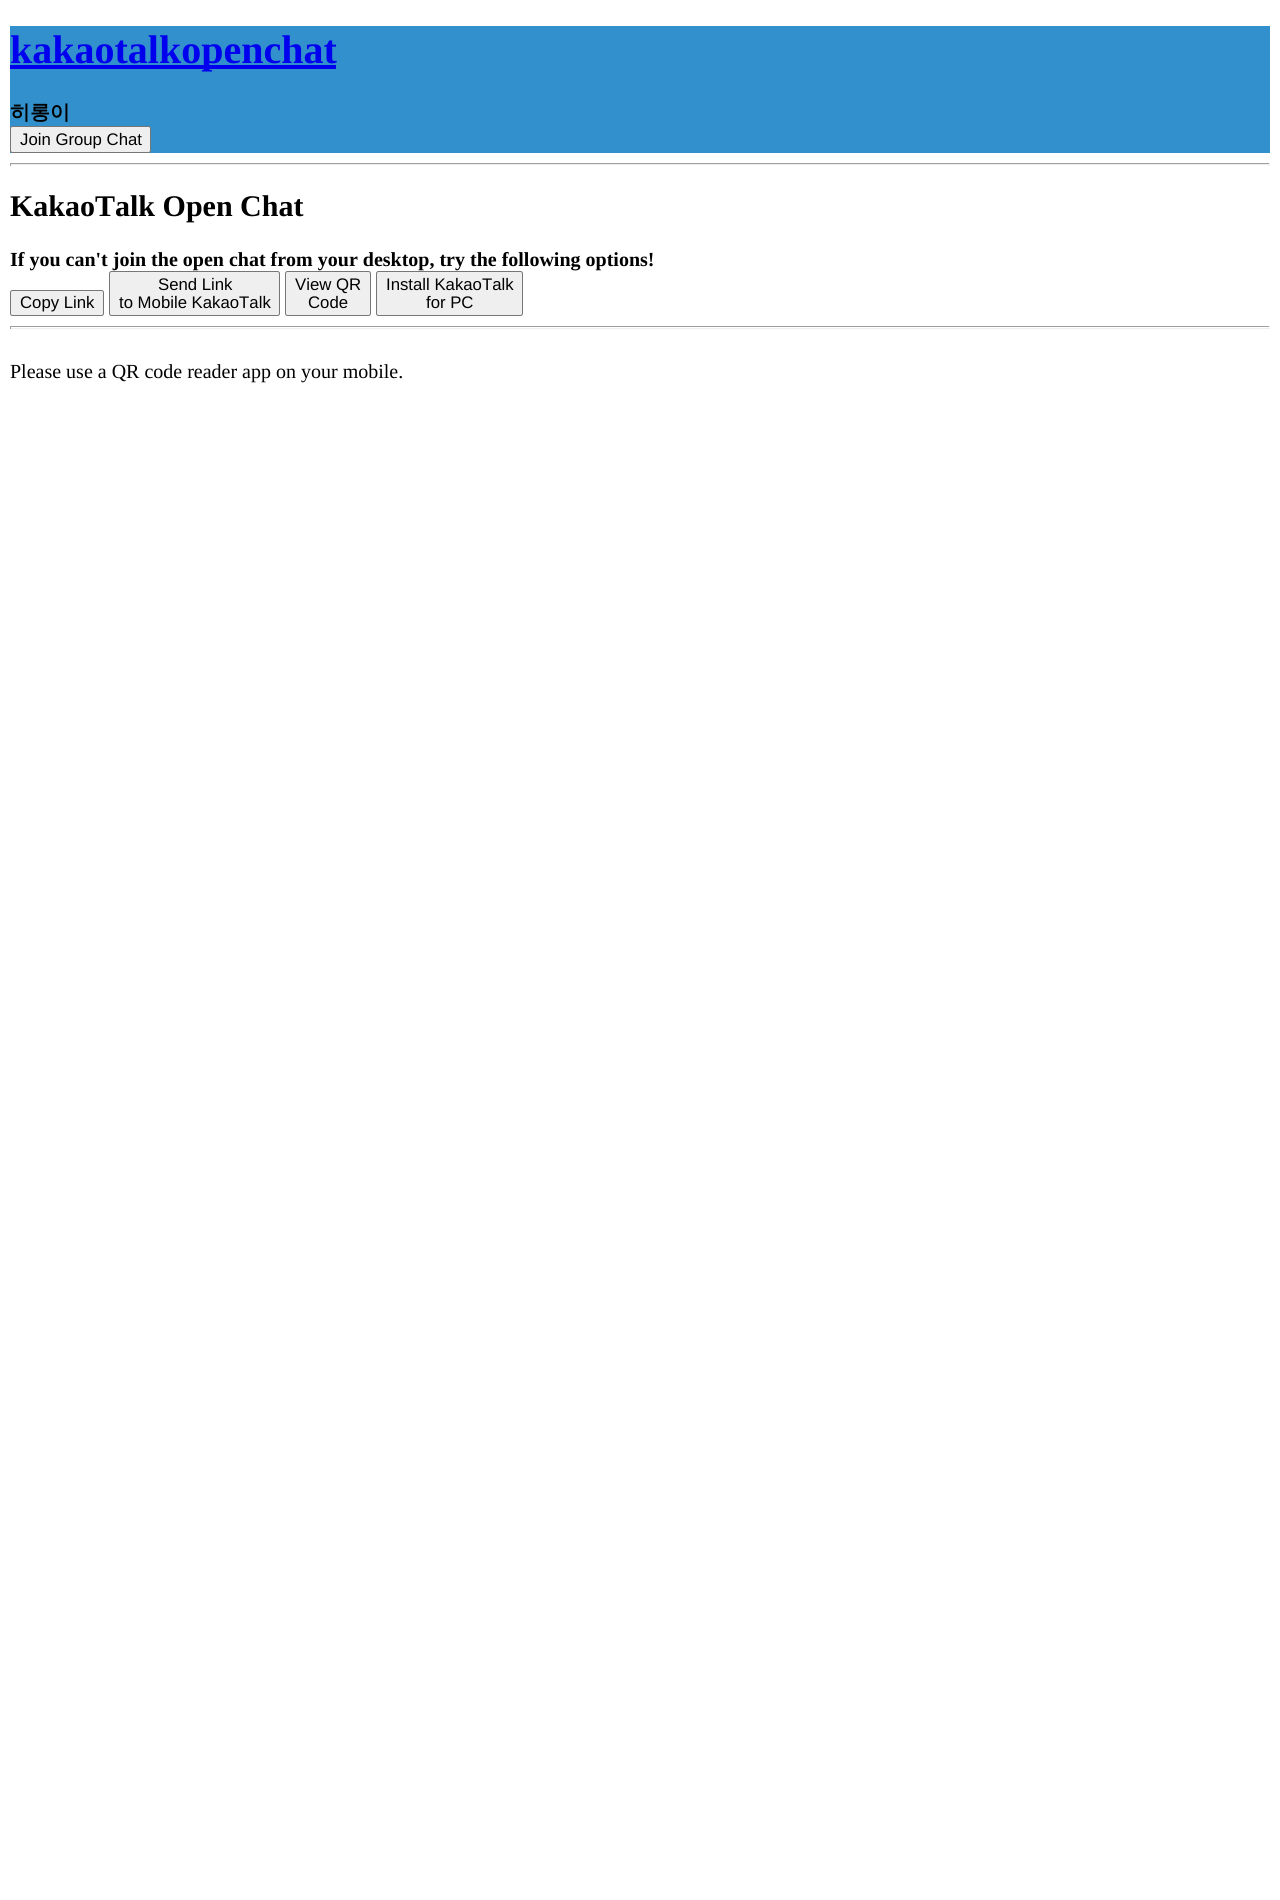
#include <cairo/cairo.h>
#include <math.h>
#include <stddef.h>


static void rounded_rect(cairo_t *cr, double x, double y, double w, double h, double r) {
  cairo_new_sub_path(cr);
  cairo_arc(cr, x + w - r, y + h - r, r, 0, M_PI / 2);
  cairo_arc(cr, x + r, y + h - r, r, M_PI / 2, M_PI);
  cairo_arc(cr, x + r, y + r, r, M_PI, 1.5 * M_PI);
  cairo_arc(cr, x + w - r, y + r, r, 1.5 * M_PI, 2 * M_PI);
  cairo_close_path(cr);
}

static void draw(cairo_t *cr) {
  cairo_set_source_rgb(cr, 1, 1, 1);
  cairo_paint(cr);
  cairo_set_source_rgb(cr, 50 / 255.0, 145 / 255.0, 204 / 255.0);
  cairo_rectangle(cr, 10, 26, 1260, 127);
  cairo_fill(cr);
  cairo_set_source_rgb(cr, 0, 0, 238 / 255.0);
  cairo_rectangle(cr, 10, 65, 326, 4);
  cairo_fill(cr);
  cairo_set_source_rgb(cr, 239 / 255.0, 239 / 255.0, 239 / 255.0);
  rounded_rect(cr, 10.5, 126.5, 140, 26, 2);
  cairo_fill_preserve(cr);
  cairo_set_source_rgb(cr, 118 / 255.0, 118 / 255.0, 118 / 255.0);
  cairo_set_line_width(cr, 1);
  cairo_stroke(cr);
  cairo_set_source_rgb(cr, 159 / 255.0, 159 / 255.0, 159 / 255.0);
  cairo_rectangle(cr, 10, 163, 1260, 1);
  cairo_fill(cr);
  cairo_set_source_rgb(cr, 238 / 255.0, 238 / 255.0, 238 / 255.0);
  cairo_rectangle(cr, 1269, 163, 1, 3);
  cairo_fill(cr);
  cairo_rectangle(cr, 10, 164, 1260, 1);
  cairo_fill(cr);
  cairo_set_source_rgb(cr, 159 / 255.0, 159 / 255.0, 159 / 255.0);
  cairo_rectangle(cr, 10, 163, 1, 3);
  cairo_fill(cr);
  cairo_set_source_rgb(cr, 239 / 255.0, 239 / 255.0, 239 / 255.0);
  rounded_rect(cr, 10.5, 290.5, 93, 25, 2);
  cairo_fill_preserve(cr);
  cairo_set_source_rgb(cr, 118 / 255.0, 118 / 255.0, 118 / 255.0);
  cairo_stroke(cr);
  cairo_set_source_rgb(cr, 239 / 255.0, 239 / 255.0, 239 / 255.0);
  rounded_rect(cr, 109.5, 271.5, 170, 44, 2);
  cairo_fill_preserve(cr);
  cairo_set_source_rgb(cr, 118 / 255.0, 118 / 255.0, 118 / 255.0);
  cairo_stroke(cr);
  cairo_set_source_rgb(cr, 239 / 255.0, 239 / 255.0, 239 / 255.0);
  rounded_rect(cr, 285.5, 271.5, 85, 44, 2);
  cairo_fill_preserve(cr);
  cairo_set_source_rgb(cr, 118 / 255.0, 118 / 255.0, 118 / 255.0);
  cairo_stroke(cr);
  cairo_set_source_rgb(cr, 239 / 255.0, 239 / 255.0, 239 / 255.0);
  rounded_rect(cr, 376.5, 271.5, 146, 44, 2);
  cairo_fill_preserve(cr);
  cairo_set_source_rgb(cr, 118 / 255.0, 118 / 255.0, 118 / 255.0);
  cairo_stroke(cr);
  cairo_set_source_rgb(cr, 159 / 255.0, 159 / 255.0, 159 / 255.0);
  cairo_rectangle(cr, 10, 326, 1260, 1);
  cairo_fill(cr);
  cairo_set_source_rgb(cr, 238 / 255.0, 238 / 255.0, 238 / 255.0);
  cairo_rectangle(cr, 1269, 326, 1, 3);
  cairo_fill(cr);
  cairo_rectangle(cr, 10, 328, 1260, 1);
  cairo_fill(cr);
  cairo_set_source_rgb(cr, 159 / 255.0, 159 / 255.0, 159 / 255.0);
  cairo_rectangle(cr, 10, 326, 1, 3);
  cairo_fill(cr);
  cairo_select_font_face(cr, "Liberation Serif", CAIRO_FONT_SLANT_NORMAL, CAIRO_FONT_WEIGHT_BOLD);
  cairo_set_font_size(cr, 40);
  cairo_set_source_rgb(cr, 0, 0, 238 / 255.0);
  cairo_move_to(cr, 10, 63);
  cairo_show_text(cr, "kakaotalkopenchat");
  cairo_select_font_face(cr, "WenQuanYi Zen Hei", CAIRO_FONT_SLANT_NORMAL, CAIRO_FONT_WEIGHT_BOLD);
  cairo_set_font_size(cr, 20);
  cairo_set_source_rgb(cr, 0, 0, 0);
  cairo_move_to(cr, 10, 119);
  cairo_show_text(cr, "히롱이");
  cairo_select_font_face(cr, "Liberation Sans", CAIRO_FONT_SLANT_NORMAL, CAIRO_FONT_WEIGHT_NORMAL);
  cairo_set_font_size(cr, 16.75);
  cairo_move_to(cr, 20, 145);
  cairo_show_text(cr, "Join Group Chat");
  cairo_select_font_face(cr, "Liberation Serif", CAIRO_FONT_SLANT_NORMAL, CAIRO_FONT_WEIGHT_BOLD);
  cairo_set_font_size(cr, 30);
  cairo_move_to(cr, 10, 216);
  cairo_show_text(cr, "KakaoTalk Open Chat");
  cairo_set_font_size(cr, 20);
  cairo_move_to(cr, 10, 266);
  cairo_show_text(cr, "If you can't join the open chat from your desktop, try the following options!");
  cairo_select_font_face(cr, "Liberation Sans", CAIRO_FONT_SLANT_NORMAL, CAIRO_FONT_WEIGHT_NORMAL);
  cairo_set_font_size(cr, 16.75);
  cairo_move_to(cr, 20, 308);
  cairo_show_text(cr, "Copy Link");
  cairo_move_to(cr, 158, 290);
  cairo_show_text(cr, "Send Link");
  cairo_move_to(cr, 119, 308);
  cairo_show_text(cr, "to Mobile KakaoTalk");
  cairo_move_to(cr, 295, 290);
  cairo_show_text(cr, "View QR");
  cairo_move_to(cr, 308, 308);
  cairo_show_text(cr, "Code");
  cairo_move_to(cr, 386, 290);
  cairo_show_text(cr, "Install KakaoTalk");
  cairo_move_to(cr, 426, 308);
  cairo_show_text(cr, "for PC");
  cairo_select_font_face(cr, "Liberation Serif", CAIRO_FONT_SLANT_NORMAL, CAIRO_FONT_WEIGHT_NORMAL);
  cairo_set_font_size(cr, 20);
  cairo_move_to(cr, 10, 378);
  cairo_show_text(cr, "Please use a QR code reader app on your mobile.");
}

int main(void) {
  cairo_surface_t *surface = cairo_image_surface_create(CAIRO_FORMAT_RGB24, 1280, 1900);
  cairo_t *cr = cairo_create(surface);
  cairo_font_options_t *options = cairo_font_options_create();
  cairo_font_options_set_hint_metrics(options, CAIRO_HINT_METRICS_OFF);
  cairo_font_options_set_hint_style(options, CAIRO_HINT_STYLE_NONE);
  cairo_set_font_options(cr, options);
  cairo_set_miter_limit(cr, 4);
  draw(cr);
  cairo_surface_write_to_png(surface, "out.png");
  cairo_font_options_destroy(options);
  cairo_destroy(cr);
  cairo_surface_destroy(surface);
  return 0;
}
